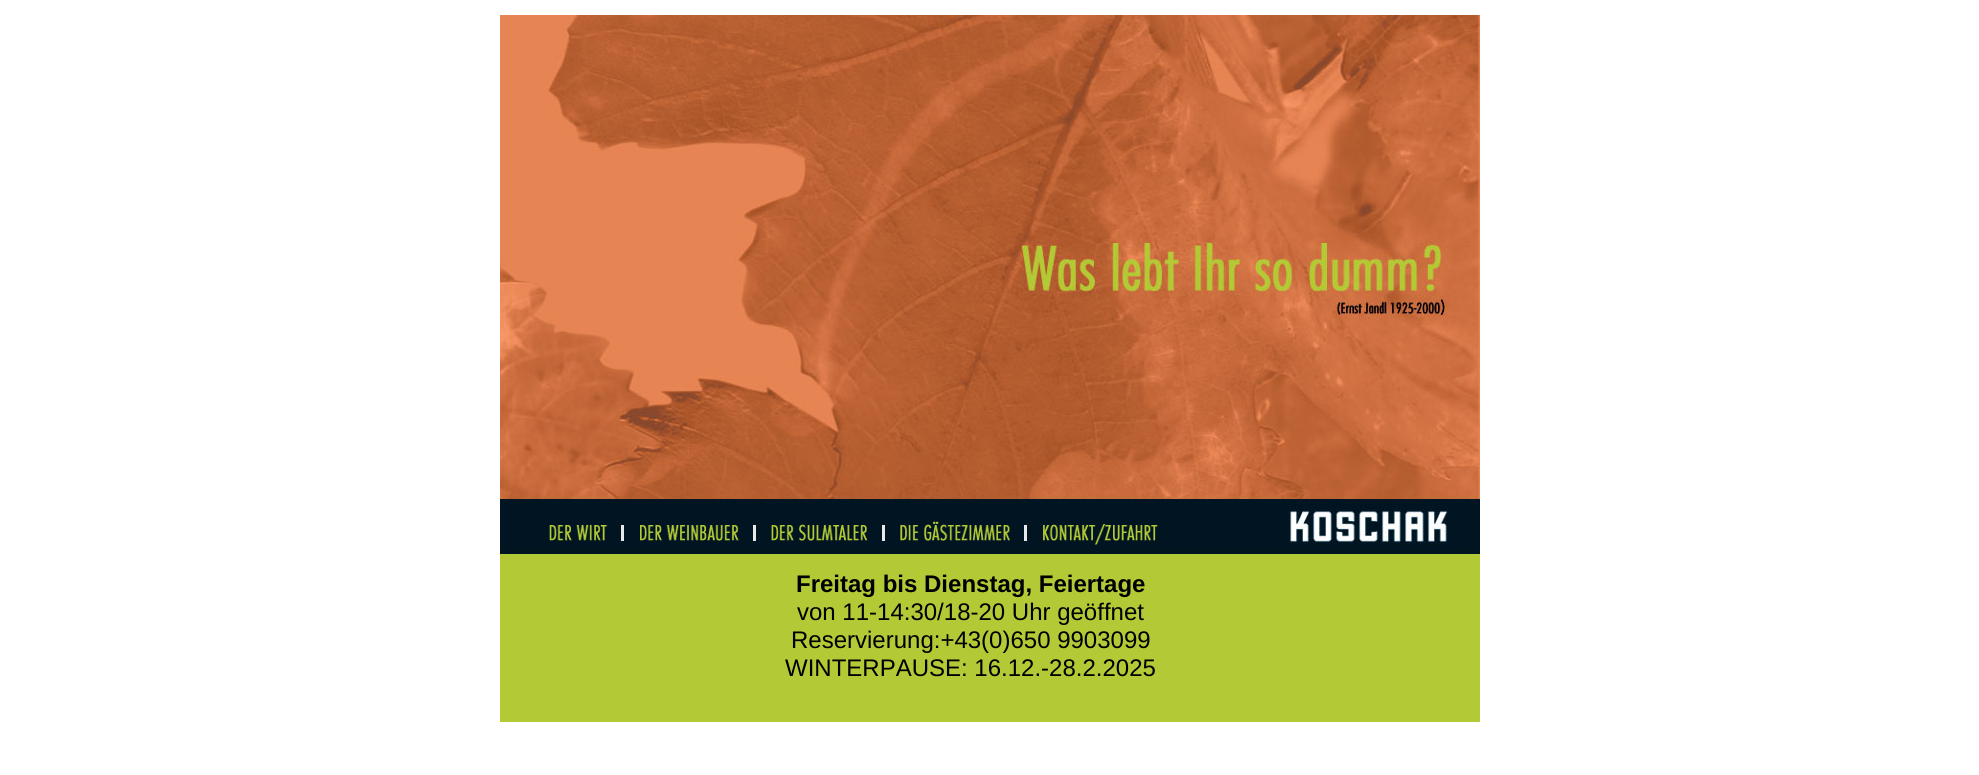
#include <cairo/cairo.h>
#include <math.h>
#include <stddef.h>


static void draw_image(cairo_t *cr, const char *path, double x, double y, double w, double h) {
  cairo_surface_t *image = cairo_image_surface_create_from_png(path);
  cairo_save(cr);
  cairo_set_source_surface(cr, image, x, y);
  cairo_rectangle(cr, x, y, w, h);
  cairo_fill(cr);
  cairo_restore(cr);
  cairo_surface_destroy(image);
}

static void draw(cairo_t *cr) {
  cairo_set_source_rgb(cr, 1, 1, 1);
  cairo_paint(cr);
  draw_image(cr, "images/1.png", 500, 15, 980, 707);
  draw_image(cr, "images/2.png", 549, 525, 59, 16);
  cairo_set_source_rgb(cr, 231 / 255.0, 233 / 255.0, 234 / 255.0);
  cairo_rectangle(cr, 621, 525, 3, 16);
  cairo_fill(cr);
  draw_image(cr, "images/3.png", 640, 525, 99, 16);
  cairo_rectangle(cr, 753, 525, 3, 16);
  cairo_fill(cr);
  draw_image(cr, "images/4.png", 771, 524, 97, 17);
  cairo_rectangle(cr, 882, 525, 3, 16);
  cairo_fill(cr);
  draw_image(cr, "images/5.png", 900, 521, 110, 20);
  cairo_rectangle(cr, 1024, 525, 3, 16);
  cairo_fill(cr);
  draw_image(cr, "images/6.png", 1043, 524, 115, 21);
  draw_image(cr, "images/7.png", 1286, 506, 165, 40);
  cairo_select_font_face(cr, "Liberation Sans", CAIRO_FONT_SLANT_NORMAL, CAIRO_FONT_WEIGHT_BOLD);
  cairo_set_font_size(cr, 24);
  cairo_set_source_rgb(cr, 0, 0, 0);
  cairo_move_to(cr, 796, 592);
  cairo_show_text(cr, "Freitag bis Dienstag, Feiertage");
  cairo_select_font_face(cr, "Liberation Sans", CAIRO_FONT_SLANT_NORMAL, CAIRO_FONT_WEIGHT_NORMAL);
  cairo_move_to(cr, 797, 620);
  cairo_show_text(cr, "von 11-14:30/18-20 Uhr geöffnet");
  cairo_move_to(cr, 791, 648);
  cairo_show_text(cr, "Reservierung:+43(0)650 9903099");
  cairo_move_to(cr, 785, 676);
  cairo_show_text(cr, "WINTERPAUSE: 16.12.-28.2.2025");
}

int main(void) {
  cairo_surface_t *surface = cairo_image_surface_create(CAIRO_FORMAT_RGB24, 1979, 775);
  cairo_t *cr = cairo_create(surface);
  cairo_font_options_t *options = cairo_font_options_create();
  cairo_font_options_set_hint_metrics(options, CAIRO_HINT_METRICS_OFF);
  cairo_font_options_set_hint_style(options, CAIRO_HINT_STYLE_NONE);
  cairo_set_font_options(cr, options);
  cairo_set_miter_limit(cr, 4);
  draw(cr);
  cairo_surface_write_to_png(surface, "out.png");
  cairo_font_options_destroy(options);
  cairo_destroy(cr);
  cairo_surface_destroy(surface);
  return 0;
}
